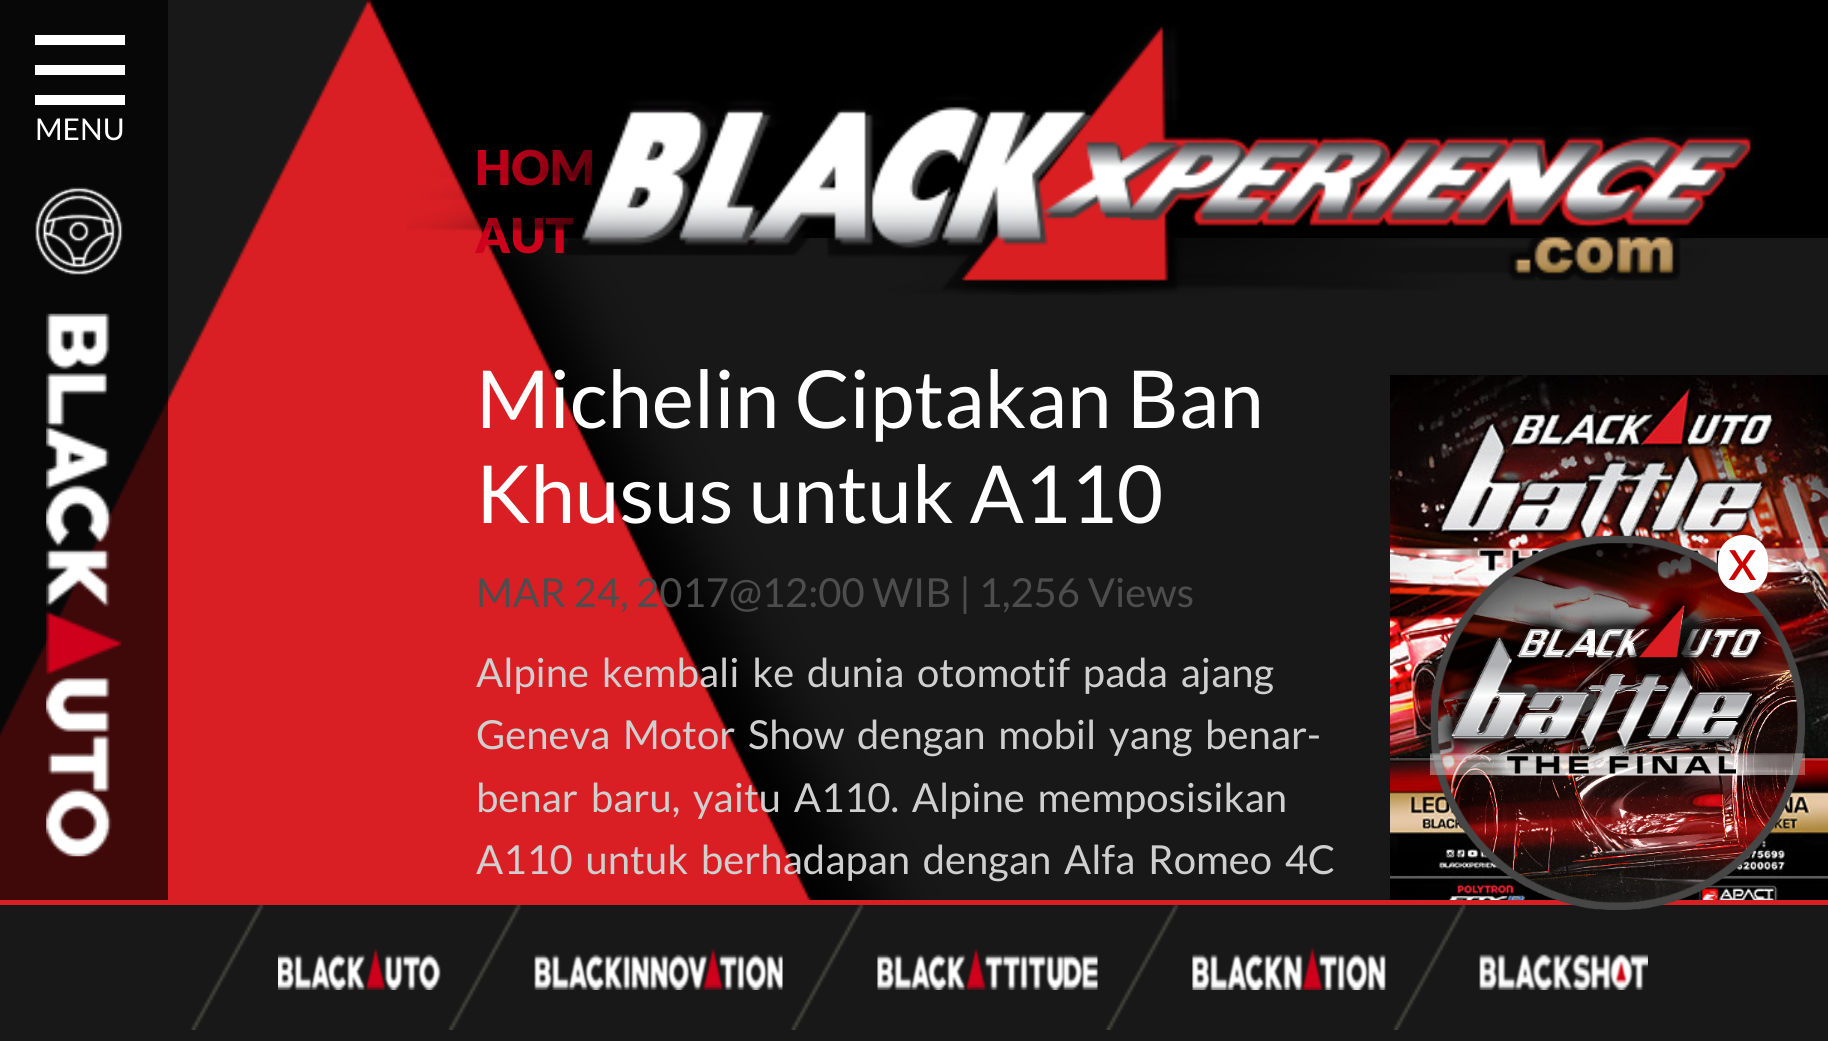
#include <cairo/cairo.h>
#include <math.h>
#include <stddef.h>


static void draw_spaced(cairo_t *cr, double x, double y, const char *s, double letter, double word) {
  cairo_move_to(cr, x, y);
  while (*s) {
    char ch[5] = {0};
    int n = 0;
    do ch[n++] = *s++; while ((*s & 0xC0) == 0x80);
    cairo_show_text(cr, ch);
    cairo_rel_move_to(cr, letter + word * (*ch == ' '), 0);
  }
}

static void rounded_rect(cairo_t *cr, double x, double y, double w, double h, double r) {
  cairo_new_sub_path(cr);
  cairo_arc(cr, x + w - r, y + h - r, r, 0, M_PI / 2);
  cairo_arc(cr, x + r, y + h - r, r, M_PI / 2, M_PI);
  cairo_arc(cr, x + r, y + r, r, M_PI, 1.5 * M_PI);
  cairo_arc(cr, x + w - r, y + r, r, 1.5 * M_PI, 2 * M_PI);
  cairo_close_path(cr);
}

static void draw_image(cairo_t *cr, const char *path, double x, double y, double w, double h) {
  cairo_surface_t *image = cairo_image_surface_create_from_png(path);
  cairo_save(cr);
  cairo_set_source_surface(cr, image, x, y);
  cairo_rectangle(cr, x, y, w, h);
  cairo_fill(cr);
  cairo_restore(cr);
  cairo_surface_destroy(image);
}

static void draw(cairo_t *cr) {
  cairo_set_source_rgb(cr, 24 / 255.0, 24 / 255.0, 24 / 255.0);
  cairo_paint(cr);
  cairo_set_source_rgb(cr, 0, 0, 0);
  cairo_rectangle(cr, 368, 0, 1460, 238);
  cairo_fill(cr);
  draw_image(cr, "images/3.png", 0, 0, 944, 900);
  cairo_set_source_rgba(cr, 0, 0, 0, 0.71);
  cairo_rectangle(cr, 0, 0, 168, 900);
  cairo_fill(cr);
  cairo_set_source_rgb(cr, 1, 1, 1);
  cairo_rectangle(cr, 35, 35, 90, 10);
  cairo_fill(cr);
  cairo_rectangle(cr, 35, 65, 90, 10);
  cairo_fill(cr);
  cairo_rectangle(cr, 35, 95, 90, 10);
  cairo_fill(cr);
  draw_image(cr, "images/1.png", 35, 187, 88, 88);
  draw_image(cr, "images/2.png", 46, 313, 76, 544);
  draw_image(cr, "images/5.png", 1390, 375, 438, 525);
  cairo_set_source_rgb(cr, 218 / 255.0, 31 / 255.0, 36 / 255.0);
  cairo_rectangle(cr, 0, 900, 1828, 5);
  cairo_fill(cr);
  draw_image(cr, "images/9.png", 1393, 905, 73, 125);
  draw_image(cr, "images/6.png", 1430, 535, 375, 375);
  cairo_set_source_rgb(cr, 1, 1, 1);
  rounded_rect(cr, 1718, 535, 50, 58, 25);
  cairo_fill(cr);
  draw_image(cr, "images/7.png", 190, 905, 74, 125);
  draw_image(cr, "images/8.png", 278, 948, 163, 42);
  draw_image(cr, "images/9.png", 448, 905, 73, 125);
  draw_image(cr, "images/10.png", 534, 948, 249, 42);
  draw_image(cr, "images/7.png", 790, 905, 74, 125);
  draw_image(cr, "images/11.png", 877, 948, 221, 42);
  draw_image(cr, "images/12.png", 1105, 905, 74, 125);
  draw_image(cr, "images/13.png", 1192, 947, 194, 43);
  draw_image(cr, "images/14.png", 1479, 954, 169, 36);
  cairo_select_font_face(cr, "Lato", CAIRO_FONT_SLANT_NORMAL, CAIRO_FONT_WEIGHT_NORMAL);
  cairo_set_font_size(cr, 30);
  cairo_move_to(cr, 35, 140);
  cairo_show_text(cr, "MENU");
  cairo_select_font_face(cr, "Lato Black", CAIRO_FONT_SLANT_NORMAL, CAIRO_FONT_WEIGHT_NORMAL);
  cairo_set_font_size(cr, 48);
  cairo_set_source_rgb(cr, 207 / 255.0, 0, 28 / 255.0);
  cairo_move_to(cr, 475, 185);
  cairo_show_text(cr, "HOM");
  cairo_move_to(cr, 475, 253);
  cairo_show_text(cr, "AUT");
  draw_image(cr, "images/4.png", 406, 26, 1349, 269);
  cairo_select_font_face(cr, "Lato", CAIRO_FONT_SLANT_NORMAL, CAIRO_FONT_WEIGHT_NORMAL);
  cairo_set_font_size(cr, 80);
  cairo_set_source_rgb(cr, 1, 1, 1);
  cairo_move_to(cr, 476, 428);
  cairo_show_text(cr, "Michelin Ciptakan Ban");
  cairo_move_to(cr, 476, 523);
  cairo_show_text(cr, "Khusus untuk A110");
  cairo_set_font_size(cr, 40);
  cairo_set_source_rgb(cr, 77 / 255.0, 77 / 255.0, 77 / 255.0);
  cairo_move_to(cr, 476, 607);
  cairo_show_text(cr, "MAR 24, 2017@12:00 WIB | 1,256 Views");
  cairo_set_source_rgb(cr, 207 / 255.0, 207 / 255.0, 207 / 255.0);
  draw_spaced(cr, 476, 687, "Alpine kembali ke dunia otomotif pada ajang", 0, 5);
  draw_spaced(cr, 476, 749, "Geneva Motor Show dengan mobil yang benar-", 0, 5);
  draw_spaced(cr, 476, 812, "benar baru, yaitu A110. Alpine memposisikan", 0, 5);
  draw_spaced(cr, 476, 874, "A110 untuk berhadapan dengan Alfa Romeo 4C", 0, 5);
  cairo_select_font_face(cr, "Lato", CAIRO_FONT_SLANT_NORMAL, CAIRO_FONT_WEIGHT_BOLD);
  cairo_set_source_rgb(cr, 204 / 255.0, 0, 0);
  cairo_move_to(cr, 1729, 580);
  cairo_show_text(cr, "X");
}

int main(void) {
  cairo_surface_t *surface = cairo_image_surface_create(CAIRO_FORMAT_RGB24, 1828, 1041);
  cairo_t *cr = cairo_create(surface);
  cairo_font_options_t *options = cairo_font_options_create();
  cairo_font_options_set_hint_metrics(options, CAIRO_HINT_METRICS_OFF);
  cairo_font_options_set_hint_style(options, CAIRO_HINT_STYLE_NONE);
  cairo_set_font_options(cr, options);
  cairo_set_miter_limit(cr, 4);
  draw(cr);
  cairo_surface_write_to_png(surface, "out.png");
  cairo_font_options_destroy(options);
  cairo_destroy(cr);
  cairo_surface_destroy(surface);
  return 0;
}
